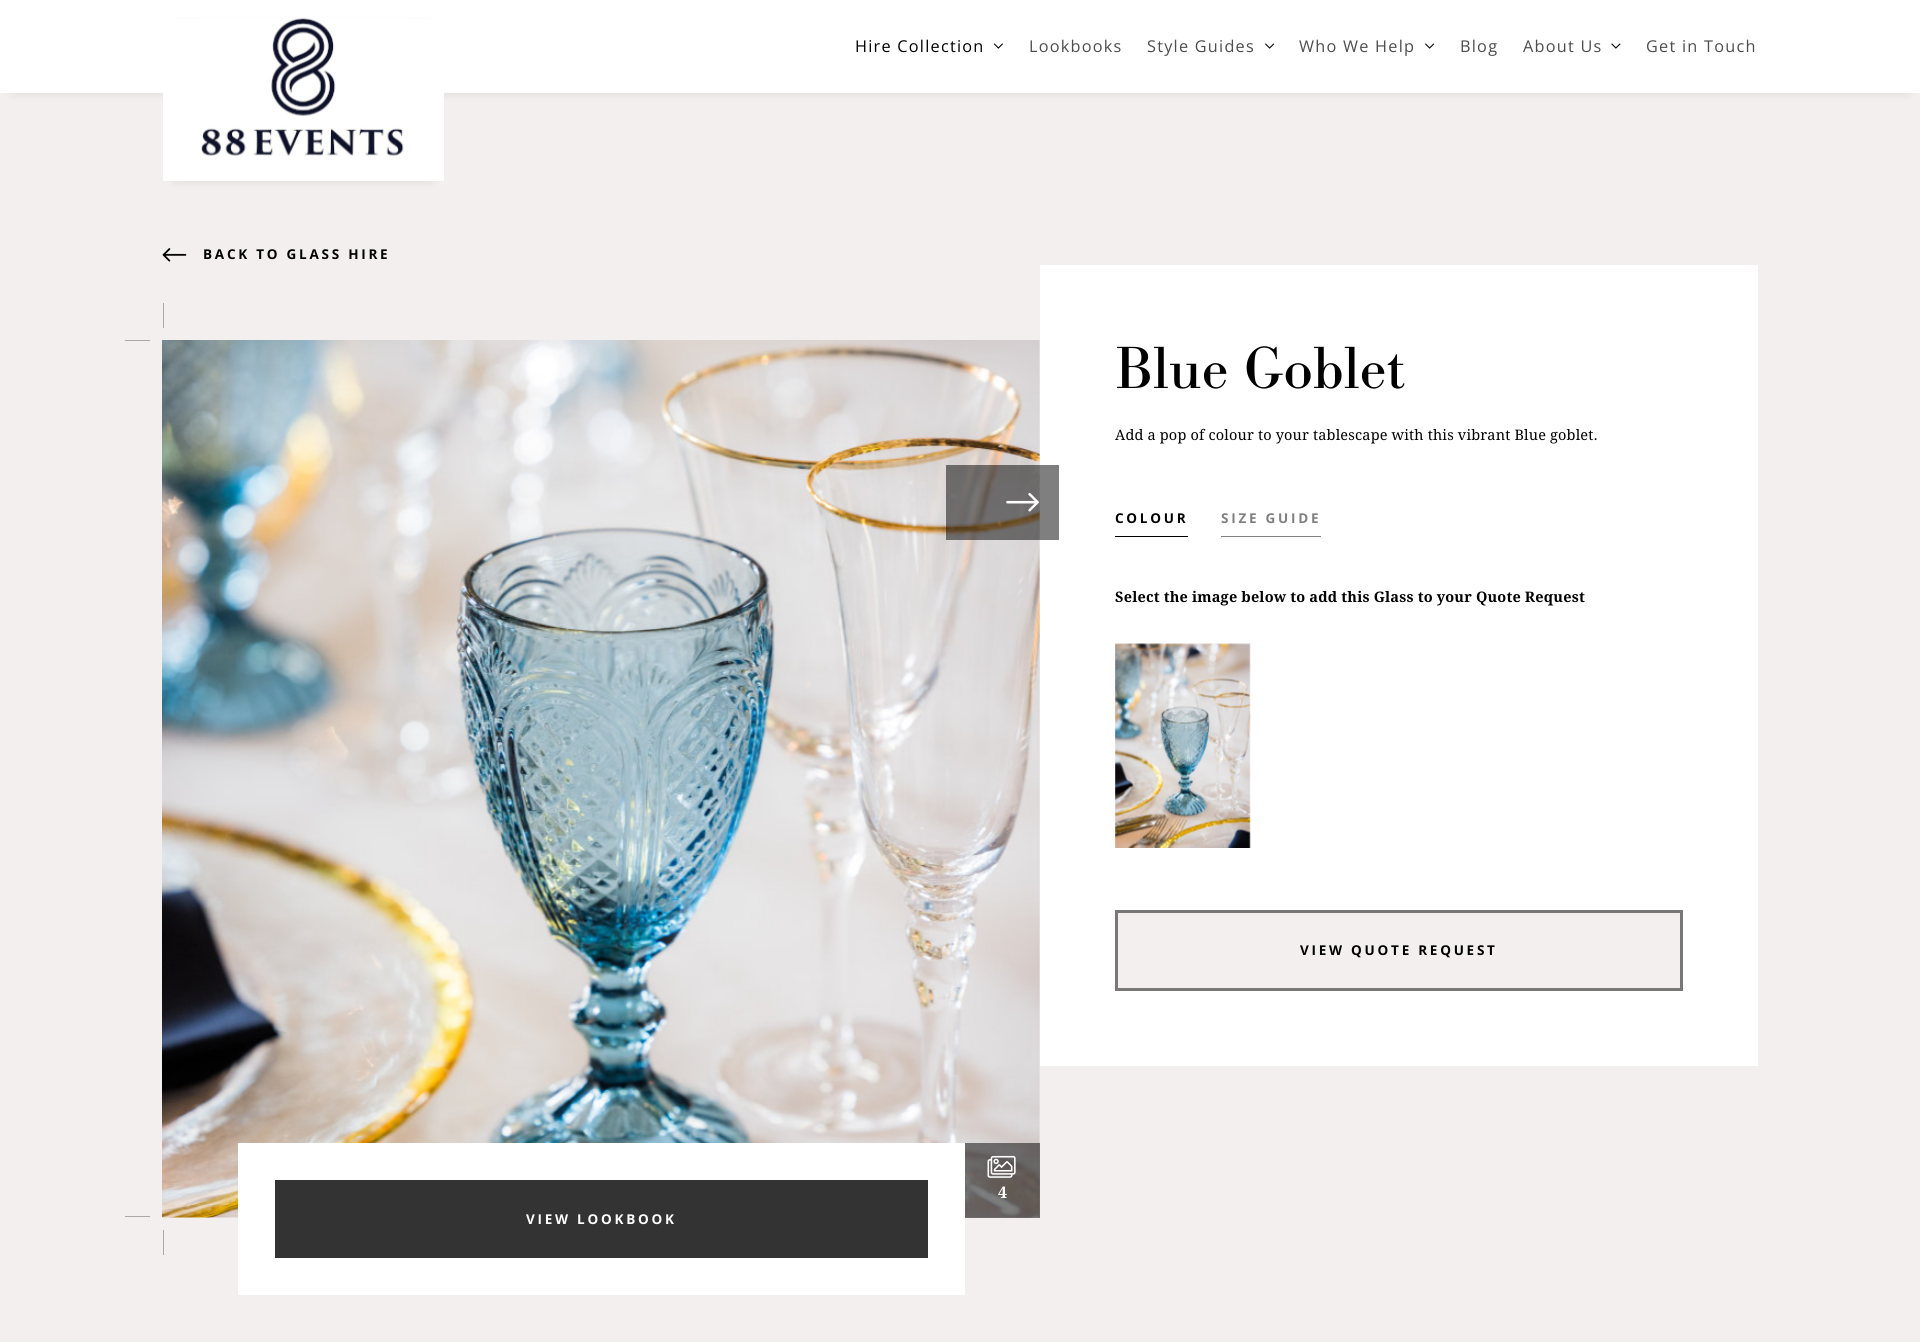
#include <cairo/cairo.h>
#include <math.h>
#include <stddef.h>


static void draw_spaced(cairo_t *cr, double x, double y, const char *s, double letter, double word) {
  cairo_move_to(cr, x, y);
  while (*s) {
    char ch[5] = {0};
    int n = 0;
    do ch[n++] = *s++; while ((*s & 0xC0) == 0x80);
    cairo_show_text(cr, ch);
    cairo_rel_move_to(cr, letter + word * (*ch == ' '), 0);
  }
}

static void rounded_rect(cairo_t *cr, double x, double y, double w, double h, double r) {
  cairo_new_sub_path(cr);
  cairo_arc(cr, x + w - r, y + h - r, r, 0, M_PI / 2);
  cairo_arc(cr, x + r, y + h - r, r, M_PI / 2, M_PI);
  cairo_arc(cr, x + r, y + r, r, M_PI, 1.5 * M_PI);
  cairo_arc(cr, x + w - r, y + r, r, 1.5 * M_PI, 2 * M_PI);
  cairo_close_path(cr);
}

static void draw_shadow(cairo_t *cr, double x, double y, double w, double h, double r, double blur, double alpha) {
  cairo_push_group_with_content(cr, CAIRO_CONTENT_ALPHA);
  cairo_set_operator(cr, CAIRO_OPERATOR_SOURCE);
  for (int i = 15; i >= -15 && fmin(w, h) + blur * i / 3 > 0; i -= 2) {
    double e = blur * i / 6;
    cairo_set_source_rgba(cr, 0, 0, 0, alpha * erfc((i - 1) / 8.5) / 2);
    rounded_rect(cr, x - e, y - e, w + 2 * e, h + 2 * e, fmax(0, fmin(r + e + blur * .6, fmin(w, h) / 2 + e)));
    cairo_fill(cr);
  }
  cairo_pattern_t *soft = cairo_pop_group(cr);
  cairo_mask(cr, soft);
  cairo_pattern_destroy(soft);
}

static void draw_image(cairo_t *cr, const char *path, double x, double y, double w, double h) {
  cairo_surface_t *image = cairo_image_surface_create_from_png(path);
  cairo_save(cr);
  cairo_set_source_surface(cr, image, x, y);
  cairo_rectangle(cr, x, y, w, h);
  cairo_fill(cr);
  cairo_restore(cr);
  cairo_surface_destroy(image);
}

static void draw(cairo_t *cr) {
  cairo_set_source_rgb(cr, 243 / 255.0, 239 / 255.0, 238 / 255.0);
  cairo_paint(cr);
  cairo_set_source_rgb(cr, 170 / 255.0, 167 / 255.0, 167 / 255.0);
  cairo_rectangle(cr, 163, 303, 1, 952);
  cairo_fill(cr);
  cairo_set_source_rgb(cr, 0, 0, 0);
  draw_shadow(cr, 13, 25, 1895, 68, 0, 5, 0.1);
  cairo_set_source_rgb(cr, 1, 1, 1);
  cairo_rectangle(cr, 0, 0, 1920, 93);
  cairo_fill(cr);
  cairo_set_source_rgb(cr, 0, 0, 0);
  draw_shadow(cr, 175, 25, 256, 156, 0, 5, 0.1);
  cairo_set_source_rgb(cr, 1, 1, 1);
  cairo_rectangle(cr, 163, 19, 281, 162);
  cairo_fill(cr);
  draw_image(cr, "images/1.png", 201, 18, 203, 138);
  draw_image(cr, "images/2.png", 993, 43, 10, 6);
  draw_image(cr, "images/3.png", 1265, 43, 10, 6);
  draw_image(cr, "images/3.png", 1425, 43, 10, 6);
  draw_image(cr, "images/4.png", 1611, 43, 10, 6);
  draw_image(cr, "images/5.png", 162, 248, 25, 14);
  cairo_rectangle(cr, 1040, 265, 718, 801);
  cairo_fill(cr);
  cairo_set_source_rgb(cr, 0, 0, 0);
  cairo_rectangle(cr, 1115, 536, 73, 1);
  cairo_fill(cr);
  cairo_set_source_rgb(cr, 128 / 255.0, 128 / 255.0, 128 / 255.0);
  cairo_rectangle(cr, 1221, 536, 100, 1);
  cairo_fill(cr);
  draw_image(cr, "images/6.png", 1115, 643, 136, 205);
  cairo_set_source_rgb(cr, 243 / 255.0, 239 / 255.0, 238 / 255.0);
  cairo_rectangle(cr, 1116.5, 911.5, 565, 78);
  cairo_fill_preserve(cr);
  cairo_set_source_rgb(cr, 122 / 255.0, 120 / 255.0, 119 / 255.0);
  cairo_set_line_width(cr, 3);
  cairo_stroke(cr);
  cairo_set_source_rgb(cr, 170 / 255.0, 167 / 255.0, 167 / 255.0);
  cairo_rectangle(cr, 125, 340, 25, 1);
  cairo_fill(cr);
  cairo_rectangle(cr, 125, 1216, 25, 1);
  cairo_fill(cr);
  cairo_set_source_rgb(cr, 243 / 255.0, 239 / 255.0, 238 / 255.0);
  cairo_rectangle(cr, 163, 328, 1, 902);
  cairo_fill(cr);
  draw_image(cr, "images/7.png", 162, 340, 878, 878);
  cairo_set_source_rgba(cr, 0, 0, 0, 0.5);
  cairo_rectangle(cr, 946, 465, 113, 75);
  cairo_fill(cr);
  draw_image(cr, "images/8.png", 1006, 492, 33, 20);
  cairo_rectangle(cr, 965, 1143, 75, 75);
  cairo_fill(cr);
  draw_image(cr, "images/9.png", 987, 1155, 29, 23);
  cairo_set_source_rgb(cr, 1, 1, 1);
  cairo_rectangle(cr, 238, 1143, 727, 152);
  cairo_fill(cr);
  cairo_set_source_rgb(cr, 51 / 255.0, 51 / 255.0, 51 / 255.0);
  cairo_rectangle(cr, 275, 1180, 653, 78);
  cairo_fill(cr);
  cairo_select_font_face(cr, "Open Sans", CAIRO_FONT_SLANT_NORMAL, CAIRO_FONT_WEIGHT_NORMAL);
  cairo_set_font_size(cr, 16.25);
  cairo_set_source_rgb(cr, 0, 0, 0);
  draw_spaced(cr, 855, 52, "Hire Collection", 1.25, 0);
  cairo_set_source_rgb(cr, 77 / 255.0, 77 / 255.0, 77 / 255.0);
  draw_spaced(cr, 1029, 52, "Lookbooks", 1.25, 0);
  draw_spaced(cr, 1147, 52, "Style Guides", 1.25, 0);
  draw_spaced(cr, 1299, 52, "Who We Help", 1.25, 0);
  draw_spaced(cr, 1460, 52, "Blog", 1.25, 0);
  draw_spaced(cr, 1523, 52, "About Us", 1.25, 0);
  draw_spaced(cr, 1646, 52, "Get in Touch", 1.25, 0);
  cairo_select_font_face(cr, "Open Sans", CAIRO_FONT_SLANT_NORMAL, CAIRO_FONT_WEIGHT_BOLD);
  cairo_set_font_size(cr, 13.5);
  cairo_set_source_rgb(cr, 0, 0, 0);
  draw_spaced(cr, 203, 259, "BACK TO GLASS HIRE", 2.75, 0);
  cairo_select_font_face(cr, "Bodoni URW", CAIRO_FONT_SLANT_NORMAL, CAIRO_FONT_WEIGHT_NORMAL);
  cairo_set_font_size(cr, 61.75);
  draw_spaced(cr, 1115, 388, "Blue Goblet", 0.18, 0);
  cairo_select_font_face(cr, "Droid Serif", CAIRO_FONT_SLANT_NORMAL, CAIRO_FONT_WEIGHT_NORMAL);
  cairo_set_font_size(cr, 14.5);
  draw_spaced(cr, 1115, 440, "Add a pop of colour to your tablescape with this vibrant Blue goblet.", 0.18, 0);
  cairo_select_font_face(cr, "Open Sans", CAIRO_FONT_SLANT_NORMAL, CAIRO_FONT_WEIGHT_BOLD);
  cairo_set_font_size(cr, 13.5);
  draw_spaced(cr, 1115, 523, "COLOUR", 2.75, 0);
  cairo_set_source_rgb(cr, 128 / 255.0, 128 / 255.0, 128 / 255.0);
  draw_spaced(cr, 1221, 523, "SIZE GUIDE", 2.75, 0);
  cairo_select_font_face(cr, "Droid Serif", CAIRO_FONT_SLANT_NORMAL, CAIRO_FONT_WEIGHT_BOLD);
  cairo_set_font_size(cr, 14.5);
  cairo_set_source_rgb(cr, 0, 0, 0);
  draw_spaced(cr, 1115, 602, "Select the image below to add this Glass to your Quote Request", 0.18, 0);
  cairo_select_font_face(cr, "Open Sans", CAIRO_FONT_SLANT_NORMAL, CAIRO_FONT_WEIGHT_BOLD);
  cairo_set_font_size(cr, 13.5);
  draw_spaced(cr, 1300, 955, "VIEW QUOTE REQUEST", 2.75, 0);
  cairo_select_font_face(cr, "Droid Serif", CAIRO_FONT_SLANT_NORMAL, CAIRO_FONT_WEIGHT_BOLD);
  cairo_set_font_size(cr, 16);
  cairo_set_source_rgb(cr, 1, 1, 1);
  draw_spaced(cr, 998, 1198, "4", 0.18, 0);
  cairo_select_font_face(cr, "Open Sans", CAIRO_FONT_SLANT_NORMAL, CAIRO_FONT_WEIGHT_BOLD);
  cairo_set_font_size(cr, 13.5);
  draw_spaced(cr, 526, 1224, "VIEW LOOKBOOK", 2.75, 0);
}

int main(void) {
  cairo_surface_t *surface = cairo_image_surface_create(CAIRO_FORMAT_RGB24, 1920, 1342);
  cairo_t *cr = cairo_create(surface);
  cairo_font_options_t *options = cairo_font_options_create();
  cairo_font_options_set_hint_metrics(options, CAIRO_HINT_METRICS_OFF);
  cairo_font_options_set_hint_style(options, CAIRO_HINT_STYLE_NONE);
  cairo_set_font_options(cr, options);
  cairo_set_miter_limit(cr, 4);
  draw(cr);
  cairo_surface_write_to_png(surface, "out.png");
  cairo_font_options_destroy(options);
  cairo_destroy(cr);
  cairo_surface_destroy(surface);
  return 0;
}
